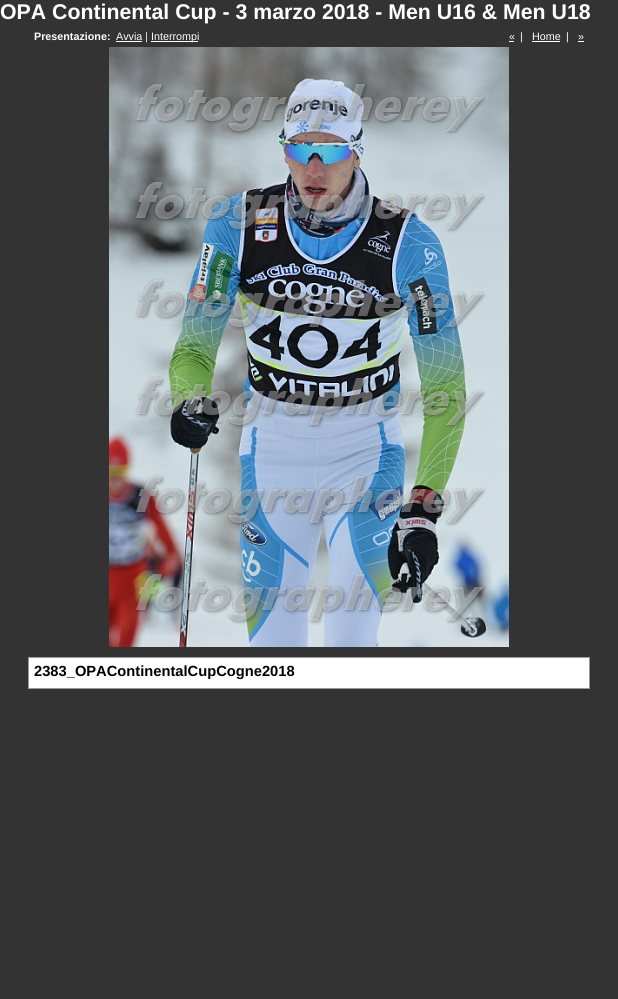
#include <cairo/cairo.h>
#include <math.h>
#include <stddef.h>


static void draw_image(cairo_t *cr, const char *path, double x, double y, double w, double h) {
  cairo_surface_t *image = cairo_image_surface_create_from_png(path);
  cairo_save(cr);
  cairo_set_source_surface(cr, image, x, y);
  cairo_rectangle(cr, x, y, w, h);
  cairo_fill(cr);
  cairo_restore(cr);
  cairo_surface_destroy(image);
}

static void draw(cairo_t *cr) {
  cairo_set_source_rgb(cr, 51 / 255.0, 51 / 255.0, 51 / 255.0);
  cairo_paint(cr);
  cairo_set_source_rgb(cr, 1, 1, 1);
  cairo_rectangle(cr, 116, 41, 26, 1);
  cairo_fill(cr);
  cairo_rectangle(cr, 151, 41, 47, 1);
  cairo_fill(cr);
  cairo_rectangle(cr, 509, 41, 5, 1);
  cairo_fill(cr);
  cairo_rectangle(cr, 532, 41, 28, 1);
  cairo_fill(cr);
  cairo_rectangle(cr, 578, 41, 6, 1);
  cairo_fill(cr);
  draw_image(cr, "images/1.png", 109, 47, 400, 600);
  cairo_rectangle(cr, 28.5, 657.5, 561, 31);
  cairo_fill_preserve(cr);
  cairo_set_source_rgb(cr, 153 / 255.0, 153 / 255.0, 153 / 255.0);
  cairo_set_line_width(cr, 1);
  cairo_stroke(cr);
  cairo_select_font_face(cr, "Liberation Sans", CAIRO_FONT_SLANT_NORMAL, CAIRO_FONT_WEIGHT_BOLD);
  cairo_set_font_size(cr, 21.3);
  cairo_set_source_rgb(cr, 1, 1, 1);
  cairo_move_to(cr, 0, 19);
  cairo_show_text(cr, "OPA Continental Cup - 3 marzo 2018 - Men U16 & Men U18");
  cairo_set_font_size(cr, 10.75);
  cairo_move_to(cr, 34, 40);
  cairo_show_text(cr, "Presentazione:");
  cairo_select_font_face(cr, "Liberation Sans", CAIRO_FONT_SLANT_NORMAL, CAIRO_FONT_WEIGHT_NORMAL);
  cairo_move_to(cr, 116, 40);
  cairo_show_text(cr, "Avvia |");
  cairo_move_to(cr, 151, 40);
  cairo_show_text(cr, "Interrompi");
  cairo_move_to(cr, 509, 40);
  cairo_show_text(cr, "«");
  cairo_move_to(cr, 520, 40);
  cairo_show_text(cr, "|");
  cairo_move_to(cr, 532, 40);
  cairo_show_text(cr, "Home");
  cairo_move_to(cr, 566, 40);
  cairo_show_text(cr, "|");
  cairo_move_to(cr, 578, 40);
  cairo_show_text(cr, "»");
  cairo_select_font_face(cr, "Liberation Sans", CAIRO_FONT_SLANT_NORMAL, CAIRO_FONT_WEIGHT_BOLD);
  cairo_set_font_size(cr, 14.7);
  cairo_set_source_rgb(cr, 0, 0, 0);
  cairo_move_to(cr, 34, 676);
  cairo_show_text(cr, "2383_OPAContinentalCupCogne2018");
}

int main(void) {
  cairo_surface_t *surface = cairo_image_surface_create(CAIRO_FORMAT_RGB24, 618, 999);
  cairo_t *cr = cairo_create(surface);
  cairo_font_options_t *options = cairo_font_options_create();
  cairo_font_options_set_hint_metrics(options, CAIRO_HINT_METRICS_OFF);
  cairo_font_options_set_hint_style(options, CAIRO_HINT_STYLE_NONE);
  cairo_set_font_options(cr, options);
  cairo_set_miter_limit(cr, 4);
  draw(cr);
  cairo_surface_write_to_png(surface, "out.png");
  cairo_font_options_destroy(options);
  cairo_destroy(cr);
  cairo_surface_destroy(surface);
  return 0;
}
